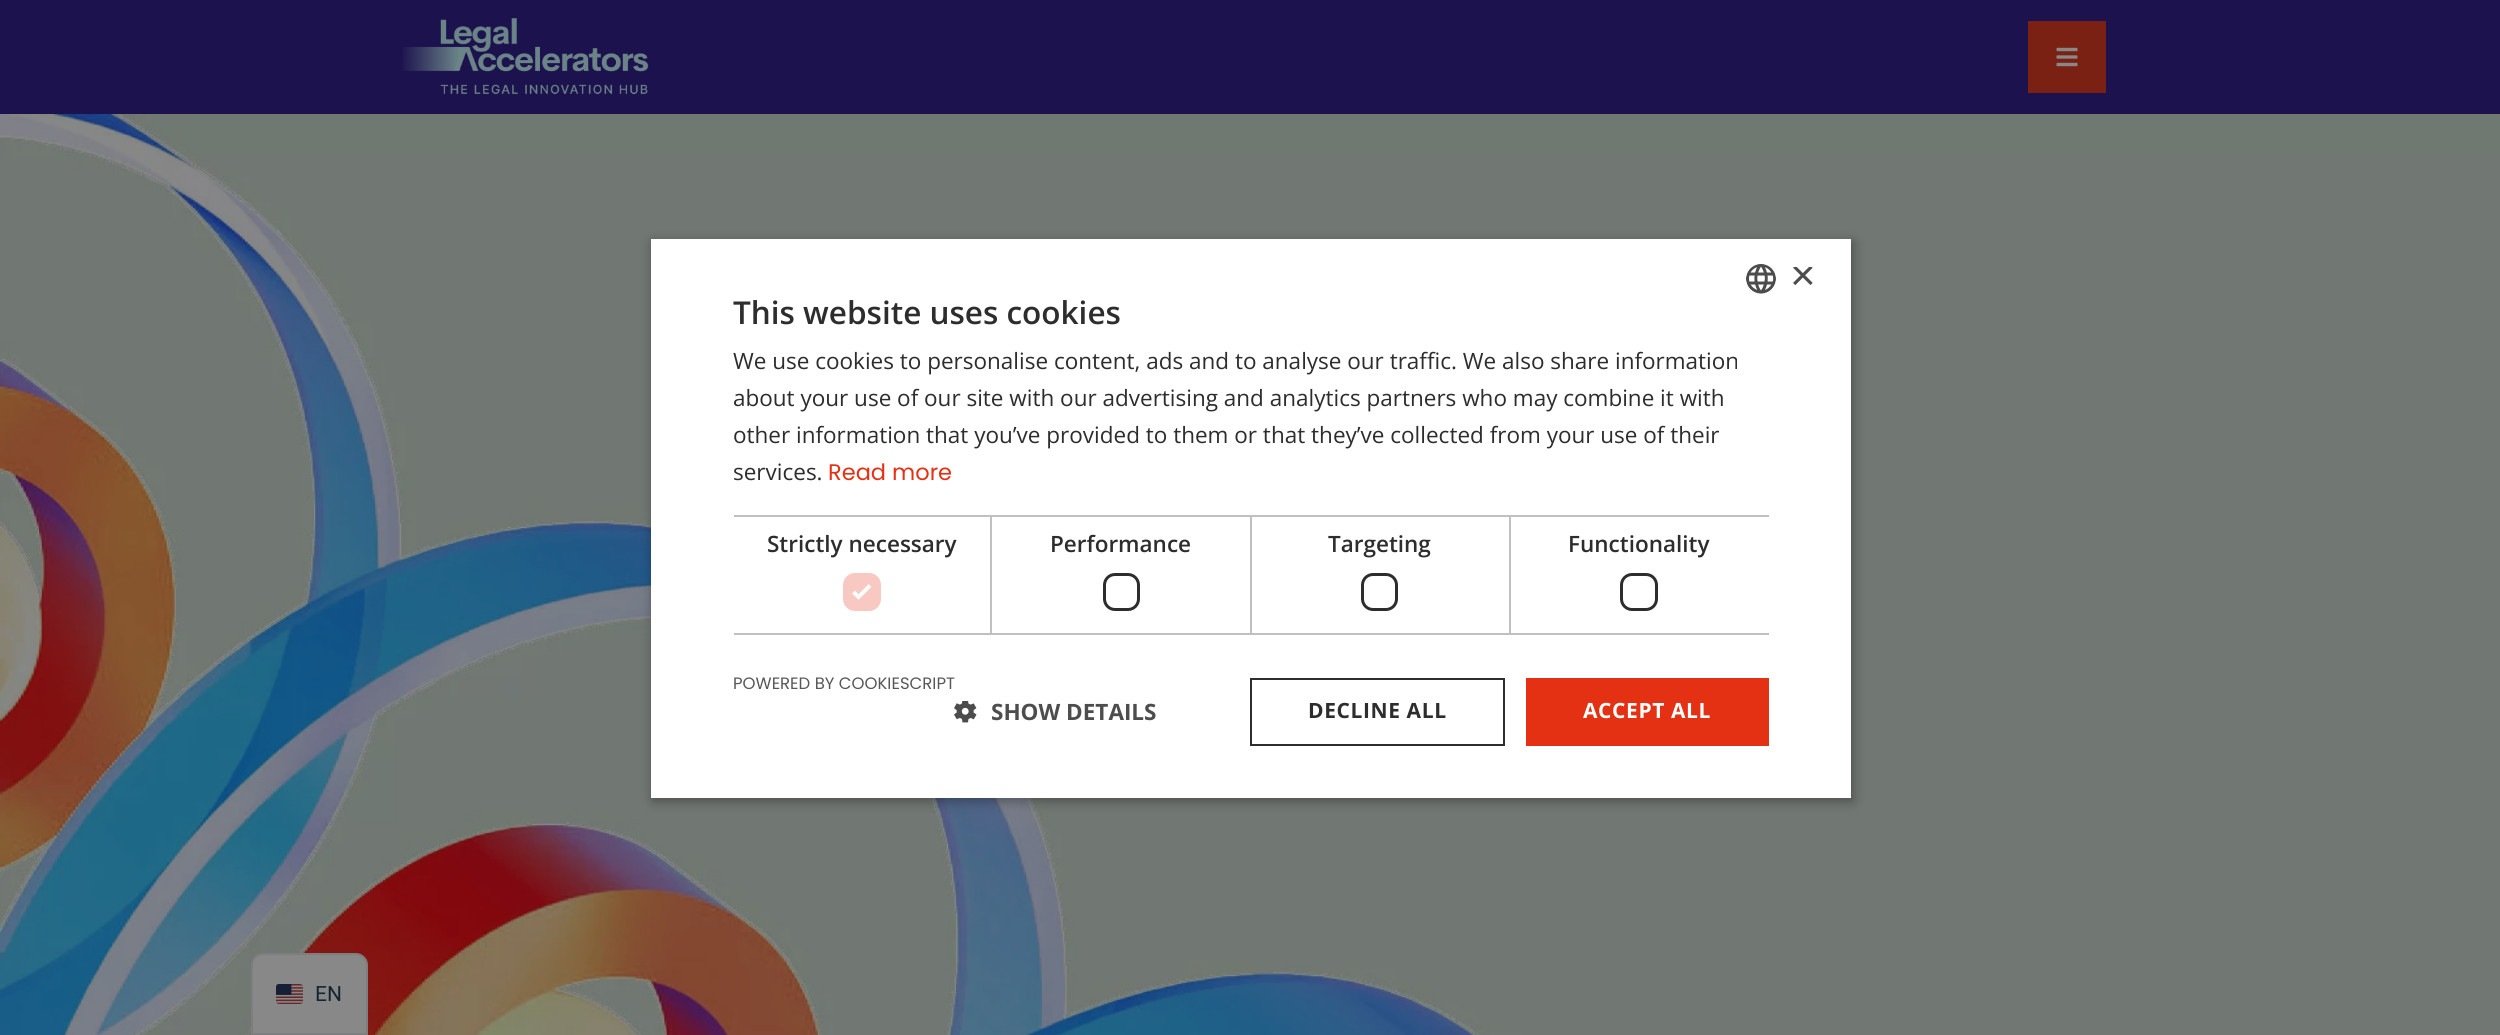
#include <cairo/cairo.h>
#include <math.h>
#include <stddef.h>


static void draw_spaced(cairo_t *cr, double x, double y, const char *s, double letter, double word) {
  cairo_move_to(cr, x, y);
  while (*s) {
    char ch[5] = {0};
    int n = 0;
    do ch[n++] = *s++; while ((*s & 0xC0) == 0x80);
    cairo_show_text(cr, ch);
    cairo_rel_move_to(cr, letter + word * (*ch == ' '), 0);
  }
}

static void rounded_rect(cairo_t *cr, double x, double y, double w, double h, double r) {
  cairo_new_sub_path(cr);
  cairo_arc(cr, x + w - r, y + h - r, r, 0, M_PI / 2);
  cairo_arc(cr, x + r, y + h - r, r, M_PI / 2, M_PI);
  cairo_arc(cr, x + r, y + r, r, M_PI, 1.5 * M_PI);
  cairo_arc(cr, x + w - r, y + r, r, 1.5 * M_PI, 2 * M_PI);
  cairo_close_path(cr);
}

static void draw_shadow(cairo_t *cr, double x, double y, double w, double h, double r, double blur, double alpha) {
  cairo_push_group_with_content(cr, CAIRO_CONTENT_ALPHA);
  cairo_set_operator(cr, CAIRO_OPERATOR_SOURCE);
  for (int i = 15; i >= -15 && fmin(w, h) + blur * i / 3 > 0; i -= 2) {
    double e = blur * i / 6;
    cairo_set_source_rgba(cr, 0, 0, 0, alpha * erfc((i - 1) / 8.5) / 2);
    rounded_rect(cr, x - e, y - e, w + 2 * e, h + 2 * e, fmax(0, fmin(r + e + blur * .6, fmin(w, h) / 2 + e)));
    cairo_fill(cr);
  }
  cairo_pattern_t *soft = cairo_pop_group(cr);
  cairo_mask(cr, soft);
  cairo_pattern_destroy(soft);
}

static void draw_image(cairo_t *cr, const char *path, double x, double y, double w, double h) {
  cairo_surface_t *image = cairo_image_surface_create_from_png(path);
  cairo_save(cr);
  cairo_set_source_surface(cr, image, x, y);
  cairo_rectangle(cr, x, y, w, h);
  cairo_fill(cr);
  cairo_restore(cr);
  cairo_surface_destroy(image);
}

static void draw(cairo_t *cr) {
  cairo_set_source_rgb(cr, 1, 1, 1);
  cairo_paint(cr);
  cairo_set_source_rgb(cr, 28 / 255.0, 18 / 255.0, 78 / 255.0);
  cairo_rectangle(cr, 0, 0, 2500, 114);
  cairo_fill(cr);
  draw_image(cr, "images/1.png", 402, 18, 247, 77);
  cairo_set_source_rgb(cr, 123 / 255.0, 33 / 255.0, 19 / 255.0);
  cairo_rectangle(cr, 2028, 21, 78, 72);
  cairo_fill(cr);
  draw_image(cr, "images/2.png", 2056, 47, 22, 20);
  draw_image(cr, "images/3.png", 0, 114, 2500, 921);
  cairo_set_source_rgb(cr, 0, 0, 0);
  draw_shadow(cr, 653, 242, 1200, 559, 0, 6, 0.35);
  cairo_set_source_rgb(cr, 1, 1, 1);
  cairo_rectangle(cr, 651, 239, 1200, 559);
  cairo_fill(cr);
  draw_image(cr, "images/4.png", 1746, 264, 30, 30);
  cairo_set_source_rgb(cr, 192 / 255.0, 192 / 255.0, 192 / 255.0);
  cairo_rectangle(cr, 734, 515, 517, 2);
  cairo_fill(cr);
  cairo_rectangle(cr, 990, 515, 2, 120);
  cairo_fill(cr);
  cairo_rectangle(cr, 734, 633, 258, 2);
  cairo_fill(cr);
  cairo_set_source_rgb(cr, 248 / 255.0, 201 / 255.0, 194 / 255.0);
  rounded_rect(cr, 843, 573, 38, 38, 12);
  cairo_fill(cr);
  cairo_new_path(cr);
  cairo_move_to(cr, 853.5, 592);
  cairo_line_to(cr, 858.5, 597);
  cairo_line_to(cr, 870, 585.5);
  cairo_set_source_rgb(cr, 1, 1, 1);
  cairo_set_line_width(cr, 3.9);
  cairo_stroke(cr);
  cairo_set_source_rgb(cr, 192 / 255.0, 192 / 255.0, 192 / 255.0);
  cairo_rectangle(cr, 1250, 515, 2, 120);
  cairo_fill(cr);
  cairo_rectangle(cr, 992, 633, 259, 2);
  cairo_fill(cr);
  rounded_rect(cr, 1104.5, 574.5, 34, 35, 10.5);
  cairo_set_source_rgb(cr, 45 / 255.0, 45 / 255.0, 45 / 255.0);
  cairo_set_line_width(cr, 3);
  cairo_stroke(cr);
  cairo_set_source_rgb(cr, 192 / 255.0, 192 / 255.0, 192 / 255.0);
  cairo_rectangle(cr, 1251, 515, 518, 2);
  cairo_fill(cr);
  cairo_rectangle(cr, 1509, 515, 2, 120);
  cairo_fill(cr);
  cairo_rectangle(cr, 1251, 633, 518, 2);
  cairo_fill(cr);
  rounded_rect(cr, 1362.5, 574.5, 34, 35, 10.5);
  cairo_set_source_rgb(cr, 45 / 255.0, 45 / 255.0, 45 / 255.0);
  cairo_stroke(cr);
  rounded_rect(cr, 1621.5, 574.5, 35, 35, 10.5);
  cairo_stroke(cr);
  draw_image(cr, "images/5.png", 954, 701, 23, 22);
  cairo_rectangle(cr, 1251, 679, 253, 66);
  cairo_set_line_width(cr, 2);
  cairo_stroke(cr);
  cairo_set_source_rgb(cr, 228 / 255.0, 49 / 255.0, 20 / 255.0);
  cairo_rectangle(cr, 1526, 678, 243, 68);
  cairo_fill(cr);
  cairo_set_source_rgb(cr, 136 / 255.0, 136 / 255.0, 136 / 255.0);
  cairo_new_path(cr);
  cairo_move_to(cr, 263, 953);
  cairo_line_to(cr, 356, 953);
  cairo_curve_to(cr, 362.5, 953, 368, 958.5, 368, 965);
  cairo_line_to(cr, 368, 1035);
  cairo_line_to(cr, 251, 1035);
  cairo_line_to(cr, 251, 965);
  cairo_curve_to(cr, 251, 958.5, 256.5, 953, 263, 953);
  cairo_close_path(cr);
  cairo_fill(cr);
  cairo_new_path(cr);
  cairo_move_to(cr, 263, 954);
  cairo_line_to(cr, 356, 954);
  cairo_curve_to(cr, 362, 954, 367, 959, 367, 965);
  cairo_line_to(cr, 367, 1034);
  cairo_line_to(cr, 252, 1034);
  cairo_line_to(cr, 252, 965);
  cairo_curve_to(cr, 252, 959, 257, 954, 263, 954);
  cairo_close_path(cr);
  cairo_set_source_rgba(cr, 19 / 255.0, 37 / 255.0, 50 / 255.0, 0.1);
  cairo_stroke(cr);
  draw_image(cr, "images/6.png", 276, 984, 27, 20);
  cairo_save(cr);
  cairo_rectangle(cr, 1791, 267, 23, 23);
  cairo_clip(cr);
  cairo_select_font_face(cr, "Liberation Sans", CAIRO_FONT_SLANT_NORMAL, CAIRO_FONT_WEIGHT_NORMAL);
  cairo_set_font_size(cr, 44);
  cairo_set_source_rgb(cr, 77 / 255.0, 77 / 255.0, 77 / 255.0);
  cairo_move_to(cr, 1790, 290);
  cairo_show_text(cr, "×");
  cairo_restore(cr);
  cairo_select_font_face(cr, "Open Sans SemiBold", CAIRO_FONT_SLANT_NORMAL, CAIRO_FONT_WEIGHT_NORMAL);
  cairo_set_font_size(cr, 31.5);
  cairo_set_source_rgb(cr, 45 / 255.0, 45 / 255.0, 45 / 255.0);
  cairo_move_to(cr, 733, 324);
  cairo_show_text(cr, "This website uses cookies");
  cairo_select_font_face(cr, "Open Sans", CAIRO_FONT_SLANT_NORMAL, CAIRO_FONT_WEIGHT_NORMAL);
  cairo_set_font_size(cr, 22.5);
  cairo_move_to(cr, 733, 369);
  cairo_show_text(cr, "We use cookies to personalise content, ads and to analyse our traffic. We also share information");
  cairo_move_to(cr, 733, 406);
  cairo_show_text(cr, "about your use of our site with our advertising and analytics partners who may combine it with");
  cairo_move_to(cr, 733, 443);
  cairo_show_text(cr, "other information that you’ve provided to them or that they’ve collected from your use of their");
  cairo_move_to(cr, 733, 480);
  cairo_show_text(cr, "services.");
  cairo_select_font_face(cr, "Poppins", CAIRO_FONT_SLANT_NORMAL, CAIRO_FONT_WEIGHT_NORMAL);
  cairo_set_source_rgb(cr, 228 / 255.0, 49 / 255.0, 20 / 255.0);
  cairo_move_to(cr, 828, 480);
  cairo_show_text(cr, "Read more");
  cairo_select_font_face(cr, "Open Sans SemiBold", CAIRO_FONT_SLANT_NORMAL, CAIRO_FONT_WEIGHT_NORMAL);
  cairo_set_source_rgb(cr, 45 / 255.0, 45 / 255.0, 45 / 255.0);
  cairo_move_to(cr, 767, 552);
  cairo_show_text(cr, "Strictly necessary");
  cairo_move_to(cr, 1050, 552);
  cairo_show_text(cr, "Performance");
  cairo_move_to(cr, 1328, 552);
  cairo_show_text(cr, "Targeting");
  cairo_move_to(cr, 1568, 552);
  cairo_show_text(cr, "Functionality");
  cairo_select_font_face(cr, "Poppins", CAIRO_FONT_SLANT_NORMAL, CAIRO_FONT_WEIGHT_NORMAL);
  cairo_set_font_size(cr, 16.5);
  cairo_set_source_rgb(cr, 87 / 255.0, 87 / 255.0, 87 / 255.0);
  cairo_move_to(cr, 733, 689);
  cairo_show_text(cr, "POWERED BY COOKIESCRIPT");
  cairo_select_font_face(cr, "Open Sans", CAIRO_FONT_SLANT_NORMAL, CAIRO_FONT_WEIGHT_BOLD);
  cairo_set_font_size(cr, 22.5);
  cairo_set_source_rgb(cr, 77 / 255.0, 77 / 255.0, 77 / 255.0);
  cairo_move_to(cr, 991, 720);
  cairo_show_text(cr, "SHOW DETAILS");
  cairo_set_font_size(cr, 21);
  cairo_set_source_rgb(cr, 45 / 255.0, 45 / 255.0, 45 / 255.0);
  draw_spaced(cr, 1308, 718, "DECLINE ALL", 0.6, 0);
  cairo_set_source_rgb(cr, 1, 1, 1);
  draw_spaced(cr, 1583, 718, "ACCEPT ALL", 0.6, 0);
  cairo_select_font_face(cr, "Roboto", CAIRO_FONT_SLANT_NORMAL, CAIRO_FONT_WEIGHT_NORMAL);
  cairo_set_source_rgb(cr, 19 / 255.0, 37 / 255.0, 50 / 255.0);
  cairo_move_to(cr, 315, 1001);
  cairo_show_text(cr, "EN");
}

int main(void) {
  cairo_surface_t *surface = cairo_image_surface_create(CAIRO_FORMAT_RGB24, 2500, 1035);
  cairo_t *cr = cairo_create(surface);
  cairo_font_options_t *options = cairo_font_options_create();
  cairo_font_options_set_hint_metrics(options, CAIRO_HINT_METRICS_OFF);
  cairo_font_options_set_hint_style(options, CAIRO_HINT_STYLE_NONE);
  cairo_set_font_options(cr, options);
  cairo_set_miter_limit(cr, 4);
  draw(cr);
  cairo_surface_write_to_png(surface, "out.png");
  cairo_font_options_destroy(options);
  cairo_destroy(cr);
  cairo_surface_destroy(surface);
  return 0;
}
